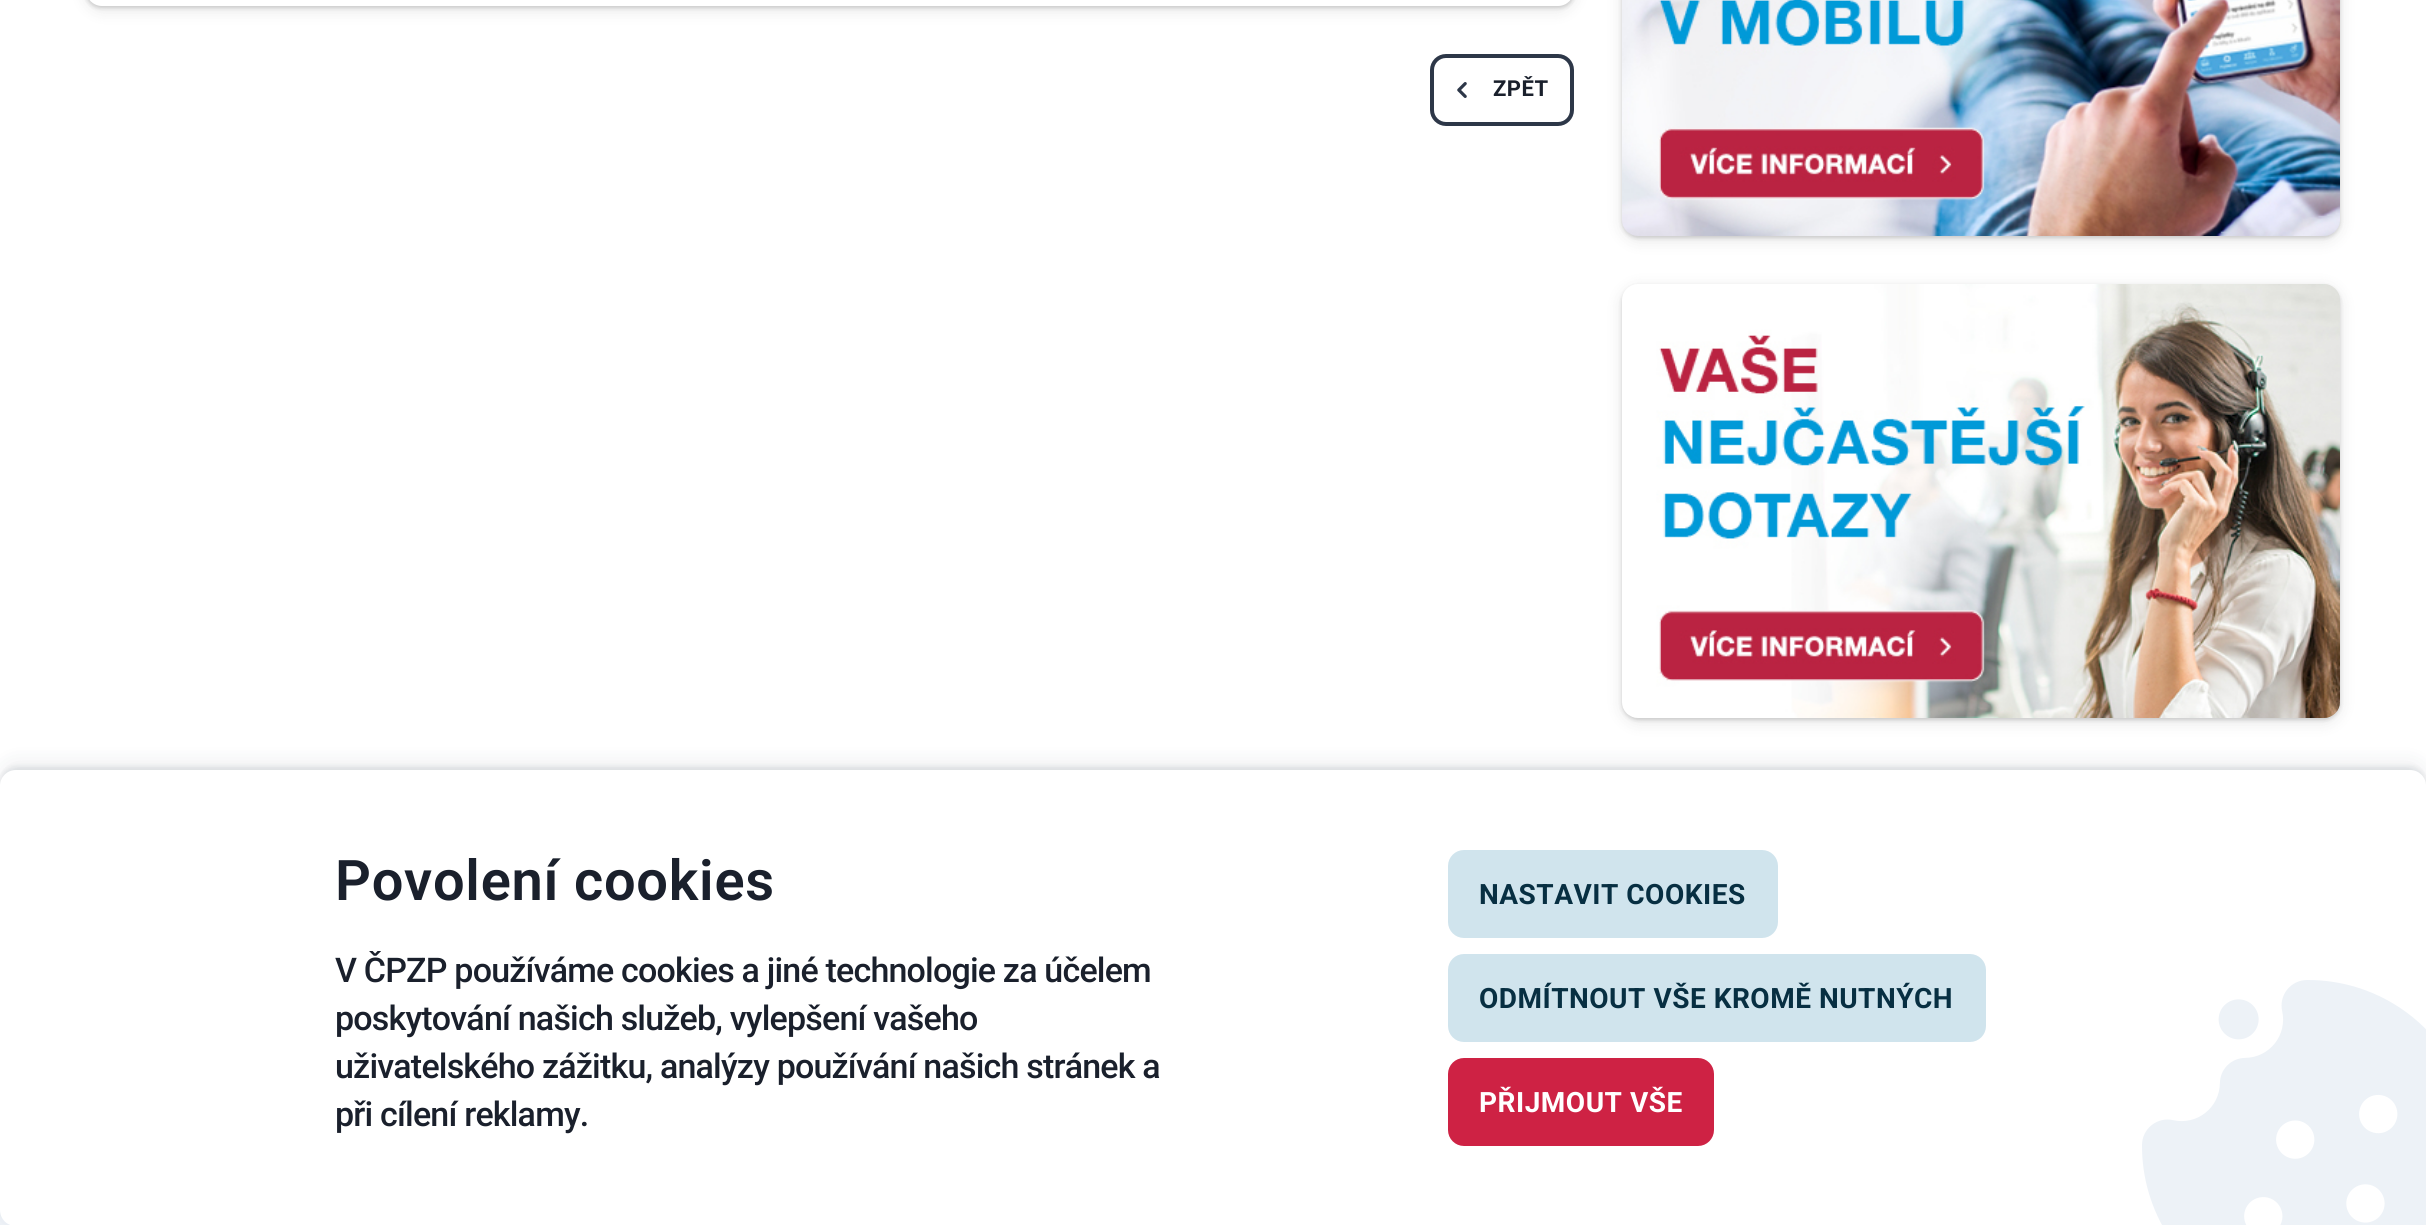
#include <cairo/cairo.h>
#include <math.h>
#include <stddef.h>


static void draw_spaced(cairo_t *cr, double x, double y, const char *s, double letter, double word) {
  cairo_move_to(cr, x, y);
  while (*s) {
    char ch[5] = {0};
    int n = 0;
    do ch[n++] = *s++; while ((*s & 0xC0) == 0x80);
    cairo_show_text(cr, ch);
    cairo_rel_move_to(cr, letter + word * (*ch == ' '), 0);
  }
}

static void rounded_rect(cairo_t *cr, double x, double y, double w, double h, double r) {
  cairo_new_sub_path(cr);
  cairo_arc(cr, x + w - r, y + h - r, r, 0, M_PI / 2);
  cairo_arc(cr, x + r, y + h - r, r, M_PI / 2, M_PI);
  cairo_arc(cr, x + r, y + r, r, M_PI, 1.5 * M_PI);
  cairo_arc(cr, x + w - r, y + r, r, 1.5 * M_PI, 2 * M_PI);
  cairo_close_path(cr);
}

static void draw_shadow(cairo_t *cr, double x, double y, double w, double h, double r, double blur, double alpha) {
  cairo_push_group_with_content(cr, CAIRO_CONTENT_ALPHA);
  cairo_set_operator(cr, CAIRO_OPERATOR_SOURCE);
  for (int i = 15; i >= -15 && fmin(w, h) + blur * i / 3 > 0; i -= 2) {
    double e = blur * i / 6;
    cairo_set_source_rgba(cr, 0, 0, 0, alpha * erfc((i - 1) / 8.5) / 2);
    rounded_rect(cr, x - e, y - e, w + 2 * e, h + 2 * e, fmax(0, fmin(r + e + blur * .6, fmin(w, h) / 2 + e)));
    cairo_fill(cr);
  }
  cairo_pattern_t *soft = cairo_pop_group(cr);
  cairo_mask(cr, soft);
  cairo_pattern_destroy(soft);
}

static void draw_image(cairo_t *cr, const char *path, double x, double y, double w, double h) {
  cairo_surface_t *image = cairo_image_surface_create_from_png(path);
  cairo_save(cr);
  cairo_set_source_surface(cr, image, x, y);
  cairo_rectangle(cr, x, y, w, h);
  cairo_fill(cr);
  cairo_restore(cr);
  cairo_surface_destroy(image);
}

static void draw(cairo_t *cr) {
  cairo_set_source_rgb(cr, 1, 1, 1);
  cairo_paint(cr);
  cairo_set_source_rgb(cr, 0, 0, 0);
  draw_shadow(cr, 86, -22, 1488, 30, 16, 2, 0.15);
  draw_shadow(cr, 86, -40, 1488, 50, 16, 8, 0.1);
  cairo_set_source_rgb(cr, 1, 1, 1);
  rounded_rect(cr, 86, -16, 1488, 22, 16);
  cairo_fill(cr);
  rounded_rect(cr, 1432, 56, 140, 68, 14);
  cairo_set_source_rgb(cr, 45 / 255.0, 55 / 255.0, 72 / 255.0);
  cairo_set_line_width(cr, 4);
  cairo_stroke(cr);
  draw_image(cr, "images/1.png", 1457, 82, 10, 16);
  cairo_set_source_rgb(cr, 0, 0, 0);
  draw_shadow(cr, 1622, -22, 718, 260, 16, 2, 0.15);
  draw_shadow(cr, 1622, -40, 718, 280, 16, 8, 0.1);
  draw_image(cr, "images/2.png", 1622, 0, 718, 236);
  draw_shadow(cr, 1622, 286, 718, 434, 16, 2, 0.15);
  draw_shadow(cr, 1622, 288, 718, 434, 16, 8, 0.1);
  draw_image(cr, "images/3.png", 1622, 284, 718, 434);
  cairo_set_source_rgb(cr, 238 / 255.0, 242 / 255.0, 247 / 255.0);
  cairo_rectangle(cr, 0, 1210, 11, 15);
  cairo_fill(cr);
  cairo_set_source_rgb(cr, 19 / 255.0, 35 / 255.0, 57 / 255.0);
  draw_shadow(cr, 0, 766, 2426, 456, 16, 2, 0.08);
  draw_shadow(cr, 0, 762, 2426, 456, 16, 10, 0.08);
  cairo_set_source_rgb(cr, 1, 1, 1);
  cairo_new_path(cr);
  cairo_move_to(cr, 16, 770);
  cairo_line_to(cr, 2410, 770);
  cairo_curve_to(cr, 2419, 770, 2426, 777, 2426, 786);
  cairo_line_to(cr, 2426, 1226);
  cairo_line_to(cr, 16, 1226);
  cairo_curve_to(cr, 7, 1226, 0, 1219, 0, 1210);
  cairo_line_to(cr, 0, 786);
  cairo_curve_to(cr, 0, 777, 7, 770, 16, 770);
  cairo_close_path(cr);
  cairo_fill(cr);
  draw_image(cr, "images/4.png", 2142, 980, 284, 245);
  cairo_set_source_rgb(cr, 208 / 255.0, 228 / 255.0, 237 / 255.0);
  rounded_rect(cr, 1450, 852, 326, 84, 14);
  cairo_fill_preserve(cr);
  cairo_stroke(cr);
  rounded_rect(cr, 1450, 956, 534, 84, 14);
  cairo_fill_preserve(cr);
  cairo_stroke(cr);
  cairo_set_source_rgb(cr, 206 / 255.0, 34 / 255.0, 68 / 255.0);
  rounded_rect(cr, 1450, 1060, 262, 84, 14);
  cairo_fill_preserve(cr);
  cairo_stroke(cr);
  cairo_select_font_face(cr, "Roboto", CAIRO_FONT_SLANT_NORMAL, CAIRO_FONT_WEIGHT_BOLD);
  cairo_set_font_size(cr, 22);
  cairo_set_source_rgb(cr, 26 / 255.0, 32 / 255.0, 44 / 255.0);
  draw_spaced(cr, 1493, 96, "ZPĚT", 0.5, 0);
  cairo_select_font_face(cr, "Roboto SemiBold", CAIRO_FONT_SLANT_NORMAL, CAIRO_FONT_WEIGHT_NORMAL);
  cairo_set_font_size(cr, 56);
  draw_spaced(cr, 335, 900, "Povolení cookies", 0.75, 0);
  cairo_select_font_face(cr, "Roboto Medium", CAIRO_FONT_SLANT_NORMAL, CAIRO_FONT_WEIGHT_NORMAL);
  cairo_set_font_size(cr, 34);
  draw_spaced(cr, 335, 982, "V ČPZP používáme cookies a jiné technologie za účelem", -0.8, 0);
  draw_spaced(cr, 335, 1030, "poskytování našich služeb, vylepšení vašeho", -0.8, 0);
  draw_spaced(cr, 335, 1078, "uživatelského zážitku, analýzy používání našich stránek a", -0.8, 0);
  draw_spaced(cr, 335, 1126, "při cílení reklamy.", -0.8, 0);
  cairo_select_font_face(cr, "Roboto", CAIRO_FONT_SLANT_NORMAL, CAIRO_FONT_WEIGHT_BOLD);
  cairo_set_font_size(cr, 28);
  cairo_set_source_rgb(cr, 7 / 255.0, 47 / 255.0, 66 / 255.0);
  draw_spaced(cr, 1479, 904, "NASTAVIT COOKIES", 0.5, 0);
  draw_spaced(cr, 1479, 1008, "ODMÍTNOUT VŠE KROMĚ NUTNÝCH", 0.5, 0);
  cairo_set_source_rgb(cr, 1, 1, 1);
  draw_spaced(cr, 1479, 1112, "PŘIJMOUT VŠE", 0.5, 0);
}

int main(void) {
  cairo_surface_t *surface = cairo_image_surface_create(CAIRO_FORMAT_RGB24, 2426, 1225);
  cairo_t *cr = cairo_create(surface);
  cairo_font_options_t *options = cairo_font_options_create();
  cairo_font_options_set_hint_metrics(options, CAIRO_HINT_METRICS_OFF);
  cairo_font_options_set_hint_style(options, CAIRO_HINT_STYLE_NONE);
  cairo_set_font_options(cr, options);
  cairo_set_miter_limit(cr, 4);
  draw(cr);
  cairo_surface_write_to_png(surface, "out.png");
  cairo_font_options_destroy(options);
  cairo_destroy(cr);
  cairo_surface_destroy(surface);
  return 0;
}
